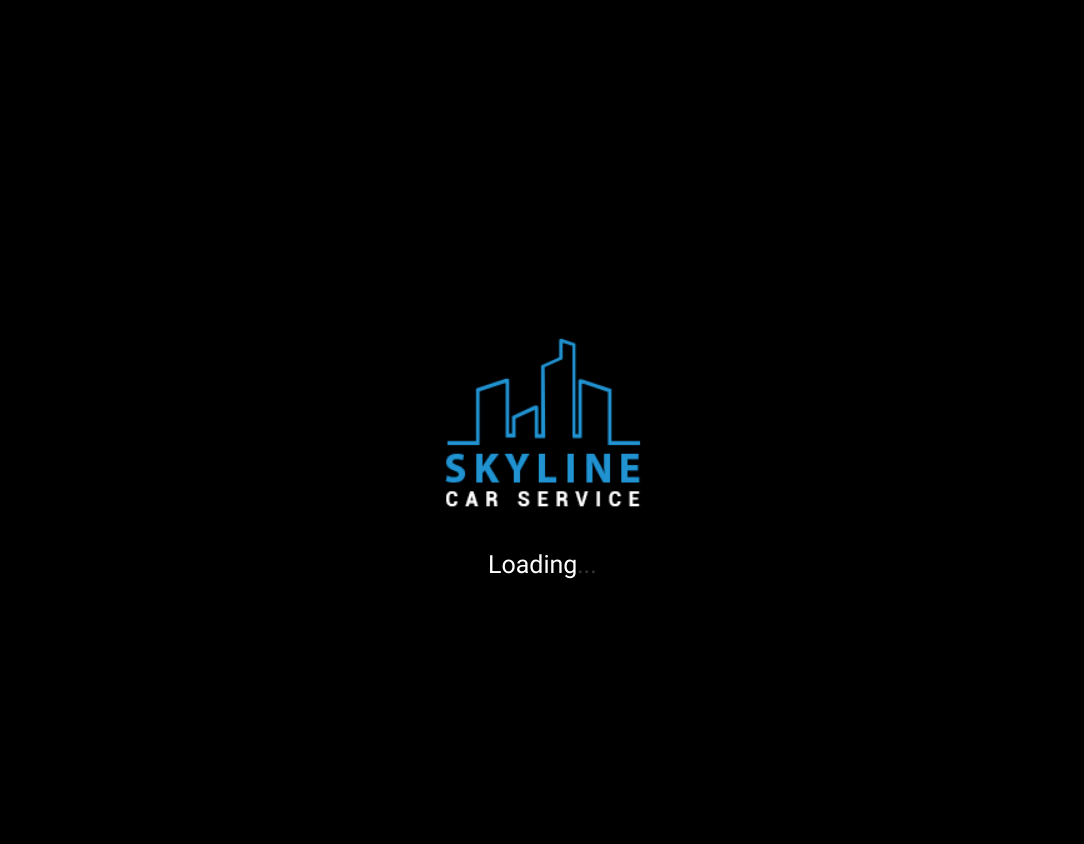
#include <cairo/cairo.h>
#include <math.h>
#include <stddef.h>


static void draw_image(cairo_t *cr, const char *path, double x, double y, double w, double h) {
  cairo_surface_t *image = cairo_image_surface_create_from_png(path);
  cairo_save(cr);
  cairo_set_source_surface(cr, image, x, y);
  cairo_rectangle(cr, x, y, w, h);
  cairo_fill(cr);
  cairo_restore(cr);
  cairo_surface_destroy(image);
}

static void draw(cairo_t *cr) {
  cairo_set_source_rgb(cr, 0, 0, 0);
  cairo_paint(cr);
  draw_image(cr, "images/1.png", 444, 338, 197, 169);
  cairo_select_font_face(cr, "Roboto", CAIRO_FONT_SLANT_NORMAL, CAIRO_FONT_WEIGHT_NORMAL);
  cairo_set_font_size(cr, 25);
  cairo_set_source_rgb(cr, 1, 1, 1);
  cairo_move_to(cr, 488, 573);
  cairo_show_text(cr, "Loading");
  cairo_set_source_rgb(cr, 51 / 255.0, 51 / 255.0, 51 / 255.0);
  cairo_move_to(cr, 577, 573);
  cairo_show_text(cr, "...");
}

int main(void) {
  cairo_surface_t *surface = cairo_image_surface_create(CAIRO_FORMAT_RGB24, 1084, 844);
  cairo_t *cr = cairo_create(surface);
  cairo_font_options_t *options = cairo_font_options_create();
  cairo_font_options_set_hint_metrics(options, CAIRO_HINT_METRICS_OFF);
  cairo_font_options_set_hint_style(options, CAIRO_HINT_STYLE_NONE);
  cairo_set_font_options(cr, options);
  cairo_set_miter_limit(cr, 4);
  draw(cr);
  cairo_surface_write_to_png(surface, "out.png");
  cairo_font_options_destroy(options);
  cairo_destroy(cr);
  cairo_surface_destroy(surface);
  return 0;
}
